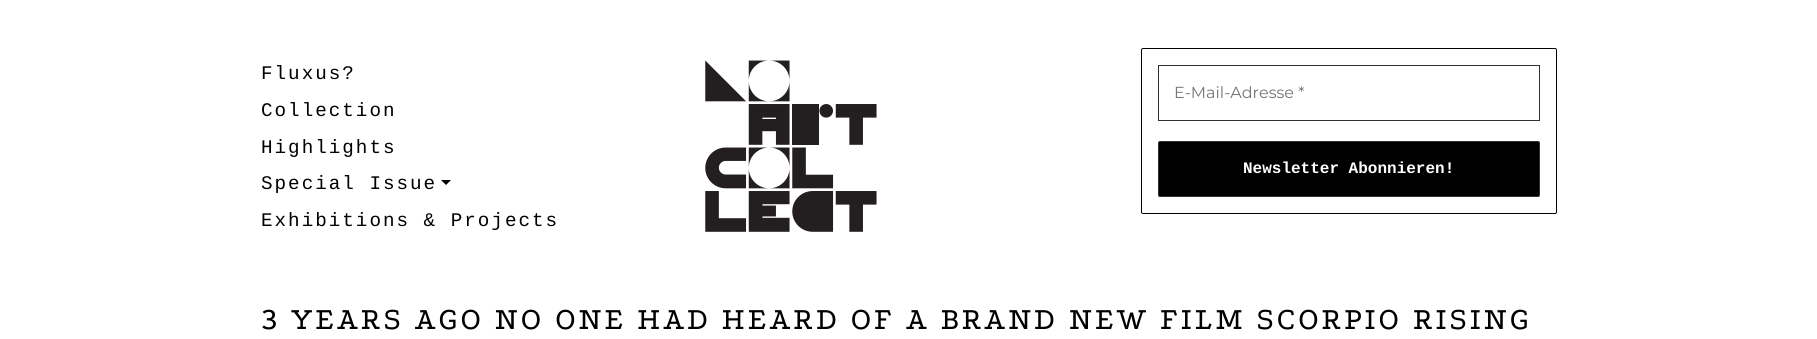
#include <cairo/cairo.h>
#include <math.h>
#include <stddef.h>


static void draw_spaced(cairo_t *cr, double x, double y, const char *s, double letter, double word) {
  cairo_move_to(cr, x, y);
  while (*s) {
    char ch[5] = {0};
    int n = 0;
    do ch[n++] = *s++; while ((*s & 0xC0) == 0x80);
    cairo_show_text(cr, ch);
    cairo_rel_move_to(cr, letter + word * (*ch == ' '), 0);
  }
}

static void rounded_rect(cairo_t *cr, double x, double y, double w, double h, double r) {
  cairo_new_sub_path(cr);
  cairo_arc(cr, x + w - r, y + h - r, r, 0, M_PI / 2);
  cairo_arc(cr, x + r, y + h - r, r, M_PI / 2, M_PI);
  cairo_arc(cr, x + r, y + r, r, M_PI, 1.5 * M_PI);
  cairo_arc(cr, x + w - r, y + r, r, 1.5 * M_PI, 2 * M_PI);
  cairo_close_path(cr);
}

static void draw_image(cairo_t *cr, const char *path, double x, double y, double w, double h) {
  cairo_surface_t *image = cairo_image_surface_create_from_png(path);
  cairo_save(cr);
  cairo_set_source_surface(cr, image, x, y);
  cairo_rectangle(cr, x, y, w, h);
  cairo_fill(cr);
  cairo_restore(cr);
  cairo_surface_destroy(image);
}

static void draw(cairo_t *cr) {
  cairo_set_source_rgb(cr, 1, 1, 1);
  cairo_paint(cr);
  cairo_set_source_rgb(cr, 0, 0, 0);
  cairo_new_path(cr);
  cairo_move_to(cr, 441, 180);
  cairo_line_to(cr, 451, 180);
  cairo_line_to(cr, 446, 185);
  cairo_close_path(cr);
  cairo_fill(cr);
  draw_image(cr, "images/1.png", 705, 60, 172, 172);
  rounded_rect(cr, 1141.5, 48.5, 415, 165, 1.5);
  cairo_set_line_width(cr, 1);
  cairo_stroke(cr);
  cairo_rectangle(cr, 1158.5, 65.5, 381, 55);
  cairo_set_source_rgb(cr, 49 / 255.0, 49 / 255.0, 49 / 255.0);
  cairo_stroke(cr);
  cairo_set_source_rgb(cr, 0, 0, 0);
  rounded_rect(cr, 1158.5, 141.5, 381, 55, 1.5);
  cairo_fill_preserve(cr);
  cairo_set_source_rgb(cr, 49 / 255.0, 49 / 255.0, 49 / 255.0);
  cairo_stroke(cr);
  cairo_select_font_face(cr, "Liberation Mono", CAIRO_FONT_SLANT_NORMAL, CAIRO_FONT_WEIGHT_NORMAL);
  cairo_set_font_size(cr, 19.25);
  cairo_set_source_rgb(cr, 0, 0, 0);
  draw_spaced(cr, 261, 79, "Fluxus?", 2, 0);
  draw_spaced(cr, 261, 116, "Collection", 2, 0);
  draw_spaced(cr, 261, 153, "Highlights", 2, 0);
  draw_spaced(cr, 261, 189, "Special Issue", 2, 0);
  draw_spaced(cr, 261, 226, "Exhibitions & Projects", 2, 0);
  cairo_select_font_face(cr, "Montserrat", CAIRO_FONT_SLANT_NORMAL, CAIRO_FONT_WEIGHT_NORMAL);
  cairo_set_font_size(cr, 16);
  cairo_set_source_rgb(cr, 117 / 255.0, 117 / 255.0, 117 / 255.0);
  cairo_move_to(cr, 1174, 98);
  cairo_show_text(cr, "E-Mail-Adresse *");
  cairo_select_font_face(cr, "Liberation Mono", CAIRO_FONT_SLANT_NORMAL, CAIRO_FONT_WEIGHT_BOLD);
  cairo_set_source_rgb(cr, 1, 1, 1);
  cairo_move_to(cr, 1243, 173);
  cairo_show_text(cr, "Newsletter Abonnieren!");
  cairo_select_font_face(cr, "Podkova", CAIRO_FONT_SLANT_NORMAL, CAIRO_FONT_WEIGHT_NORMAL);
  cairo_set_font_size(cr, 32);
  cairo_set_source_rgb(cr, 0, 0, 0);
  draw_spaced(cr, 261, 329, "3 YEARS AGO NO ONE HAD HEARD OF A BRAND NEW FILM SCORPIO RISING", 3, 0);
}

int main(void) {
  cairo_surface_t *surface = cairo_image_surface_create(CAIRO_FORMAT_RGB24, 1817, 339);
  cairo_t *cr = cairo_create(surface);
  cairo_font_options_t *options = cairo_font_options_create();
  cairo_font_options_set_hint_metrics(options, CAIRO_HINT_METRICS_OFF);
  cairo_font_options_set_hint_style(options, CAIRO_HINT_STYLE_NONE);
  cairo_set_font_options(cr, options);
  cairo_set_miter_limit(cr, 4);
  draw(cr);
  cairo_surface_write_to_png(surface, "out.png");
  cairo_font_options_destroy(options);
  cairo_destroy(cr);
  cairo_surface_destroy(surface);
  return 0;
}
